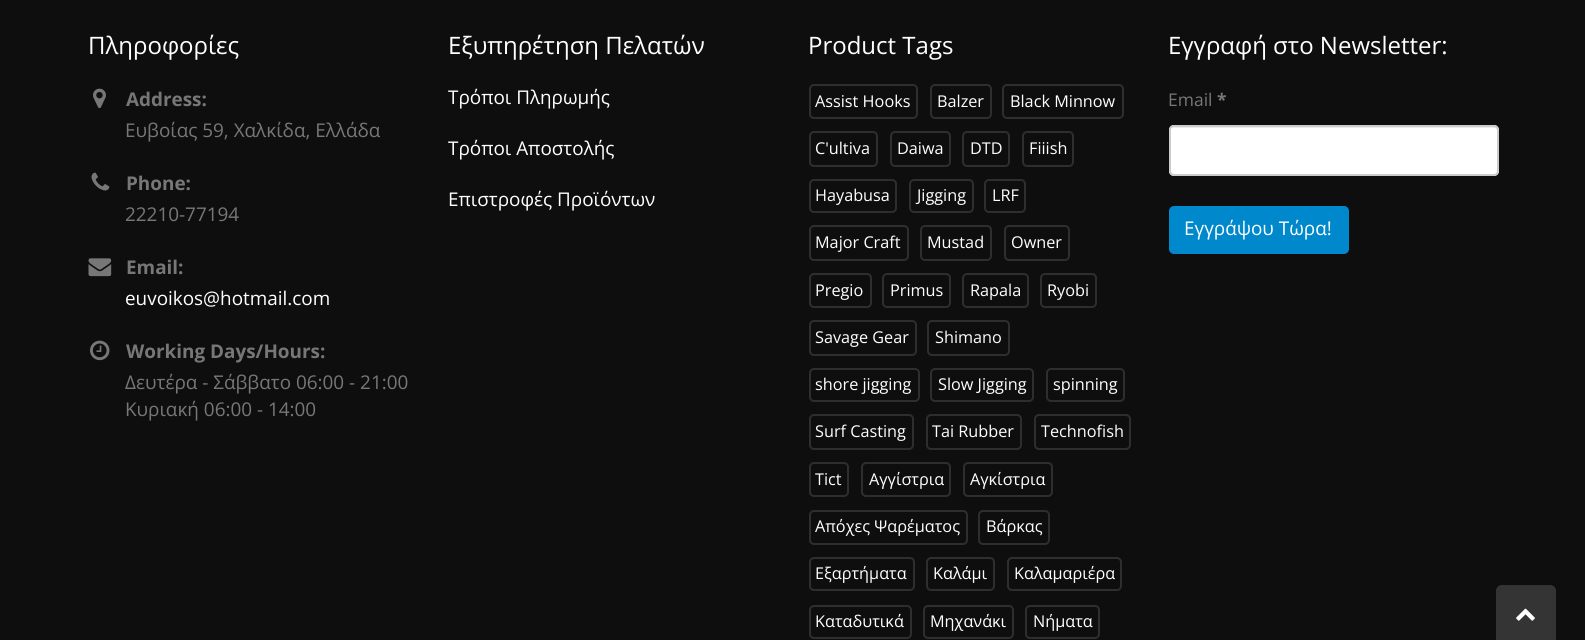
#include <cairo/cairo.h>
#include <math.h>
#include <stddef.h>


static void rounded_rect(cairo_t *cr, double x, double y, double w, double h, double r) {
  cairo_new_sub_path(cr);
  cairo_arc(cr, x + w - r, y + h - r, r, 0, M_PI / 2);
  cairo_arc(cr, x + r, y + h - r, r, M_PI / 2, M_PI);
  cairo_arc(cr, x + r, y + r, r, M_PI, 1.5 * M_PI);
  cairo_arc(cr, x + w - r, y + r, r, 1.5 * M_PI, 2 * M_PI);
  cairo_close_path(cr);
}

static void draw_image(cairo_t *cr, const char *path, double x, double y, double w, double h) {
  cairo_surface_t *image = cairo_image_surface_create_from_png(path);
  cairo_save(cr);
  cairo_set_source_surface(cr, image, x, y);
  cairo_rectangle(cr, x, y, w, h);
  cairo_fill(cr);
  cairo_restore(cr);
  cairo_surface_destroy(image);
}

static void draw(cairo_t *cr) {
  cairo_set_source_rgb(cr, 14 / 255.0, 14 / 255.0, 14 / 255.0);
  cairo_paint(cr);
  draw_image(cr, "images/1.png", 93, 88, 13, 21);
  draw_image(cr, "images/2.png", 91, 172, 19, 19);
  draw_image(cr, "images/3.png", 88, 258, 24, 19);
  draw_image(cr, "images/4.png", 90, 340, 20, 21);
  rounded_rect(cr, 810, 85, 107, 33, 4);
  cairo_set_source_rgb(cr, 46 / 255.0, 46 / 255.0, 46 / 255.0);
  cairo_stroke(cr);
  rounded_rect(cr, 931, 85, 60, 33, 4);
  cairo_stroke(cr);
  rounded_rect(cr, 1003, 85, 120, 33, 4);
  cairo_stroke(cr);
  rounded_rect(cr, 810, 132, 67, 34, 4);
  cairo_stroke(cr);
  rounded_rect(cr, 891, 132, 59, 34, 4);
  cairo_stroke(cr);
  rounded_rect(cr, 963, 132, 46, 34, 4);
  cairo_stroke(cr);
  rounded_rect(cr, 1023, 132, 50, 34, 4);
  cairo_stroke(cr);
  rounded_rect(cr, 810, 180, 86, 32, 4);
  cairo_stroke(cr);
  rounded_rect(cr, 910, 180, 63, 32, 4);
  cairo_stroke(cr);
  rounded_rect(cr, 985, 180, 40, 32, 4);
  cairo_stroke(cr);
  rounded_rect(cr, 810, 226, 98, 34, 4);
  cairo_stroke(cr);
  rounded_rect(cr, 921, 226, 70, 34, 4);
  cairo_stroke(cr);
  rounded_rect(cr, 1005, 226, 64, 34, 4);
  cairo_stroke(cr);
  rounded_rect(cr, 810, 274, 61, 33, 4);
  cairo_stroke(cr);
  rounded_rect(cr, 883, 274, 67, 33, 4);
  cairo_stroke(cr);
  rounded_rect(cr, 963, 274, 65, 33, 4);
  cairo_stroke(cr);
  rounded_rect(cr, 1041, 274, 55, 33, 4);
  cairo_stroke(cr);
  rounded_rect(cr, 810, 321, 106, 34, 4);
  cairo_stroke(cr);
  rounded_rect(cr, 928, 321, 81, 34, 4);
  cairo_stroke(cr);
  rounded_rect(cr, 810, 369, 109, 32, 4);
  cairo_stroke(cr);
  rounded_rect(cr, 931, 369, 102, 32, 4);
  cairo_stroke(cr);
  rounded_rect(cr, 1047, 369, 77, 32, 4);
  cairo_stroke(cr);
  rounded_rect(cr, 810, 415, 103, 34, 4);
  cairo_stroke(cr);
  rounded_rect(cr, 927, 415, 94, 34, 4);
  cairo_stroke(cr);
  rounded_rect(cr, 1035, 415, 95, 34, 4);
  cairo_stroke(cr);
  rounded_rect(cr, 810, 463, 38, 33, 4);
  cairo_stroke(cr);
  rounded_rect(cr, 862, 463, 88, 33, 4);
  cairo_stroke(cr);
  rounded_rect(cr, 964, 463, 88, 33, 4);
  cairo_stroke(cr);
  rounded_rect(cr, 810, 511, 157, 33, 4);
  cairo_stroke(cr);
  rounded_rect(cr, 979, 511, 70, 33, 4);
  cairo_stroke(cr);
  rounded_rect(cr, 810, 558, 104, 32, 4);
  cairo_stroke(cr);
  rounded_rect(cr, 927, 558, 67, 32, 4);
  cairo_stroke(cr);
  rounded_rect(cr, 1008, 558, 113, 32, 4);
  cairo_stroke(cr);
  rounded_rect(cr, 810, 606, 101, 32, 4);
  cairo_stroke(cr);
  rounded_rect(cr, 924, 606, 89, 32, 4);
  cairo_stroke(cr);
  rounded_rect(cr, 1026, 606, 73, 32, 4);
  cairo_stroke(cr);
  cairo_set_source_rgb(cr, 1, 1, 1);
  rounded_rect(cr, 1169, 125, 330, 51, 5);
  cairo_fill(cr);
  cairo_set_source_rgb(cr, 236 / 255.0, 236 / 255.0, 236 / 255.0);
  cairo_new_path(cr);
  cairo_move_to(cr, 1173, 128);
  cairo_line_to(cr, 1494, 128);
  cairo_curve_to(cr, 1496, 128, 1497, 129, 1497, 130);
  cairo_curve_to(cr, 1497, 128, 1496, 126, 1494, 126);
  cairo_line_to(cr, 1173, 126);
  cairo_curve_to(cr, 1171, 126, 1170, 128, 1170, 130);
  cairo_curve_to(cr, 1170, 129, 1171, 128, 1173, 128);
  cairo_close_path(cr);
  cairo_fill(cr);
  rounded_rect(cr, 1170, 126, 328, 49, 4);
  cairo_set_source_rgb(cr, 204 / 255.0, 204 / 255.0, 204 / 255.0);
  cairo_stroke(cr);
  cairo_set_source_rgb(cr, 0, 136 / 255.0, 204 / 255.0);
  rounded_rect(cr, 1170, 207, 178, 46, 4);
  cairo_fill_preserve(cr);
  cairo_stroke(cr);
  cairo_set_source_rgb(cr, 52 / 255.0, 52 / 255.0, 52 / 255.0);
  cairo_new_path(cr);
  cairo_move_to(cr, 1502, 585);
  cairo_line_to(cr, 1550, 585);
  cairo_curve_to(cr, 1553.5, 585, 1556, 587.5, 1556, 591);
  cairo_line_to(cr, 1556, 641);
  cairo_line_to(cr, 1496, 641);
  cairo_line_to(cr, 1496, 591);
  cairo_curve_to(cr, 1496, 587.5, 1498.5, 585, 1502, 585);
  cairo_close_path(cr);
  cairo_fill(cr);
  draw_image(cr, "images/5.png", 1516, 608, 19, 13);
  cairo_select_font_face(cr, "Open Sans", CAIRO_FONT_SLANT_NORMAL, CAIRO_FONT_WEIGHT_NORMAL);
  cairo_set_font_size(cr, 24);
  cairo_set_source_rgb(cr, 1, 1, 1);
  cairo_move_to(cr, 88, 54);
  cairo_show_text(cr, "Πληροφορίες");
  cairo_select_font_face(cr, "Open Sans", CAIRO_FONT_SLANT_NORMAL, CAIRO_FONT_WEIGHT_BOLD);
  cairo_set_font_size(cr, 18.9);
  cairo_set_source_rgb(cr, 119 / 255.0, 119 / 255.0, 119 / 255.0);
  cairo_move_to(cr, 126, 106);
  cairo_show_text(cr, "Address:");
  cairo_select_font_face(cr, "Open Sans", CAIRO_FONT_SLANT_NORMAL, CAIRO_FONT_WEIGHT_NORMAL);
  cairo_move_to(cr, 125, 137);
  cairo_show_text(cr, "Ευβοίας 59, Χαλκίδα, Ελλάδα");
  cairo_select_font_face(cr, "Open Sans", CAIRO_FONT_SLANT_NORMAL, CAIRO_FONT_WEIGHT_BOLD);
  cairo_move_to(cr, 126, 190);
  cairo_show_text(cr, "Phone:");
  cairo_select_font_face(cr, "Open Sans", CAIRO_FONT_SLANT_NORMAL, CAIRO_FONT_WEIGHT_NORMAL);
  cairo_move_to(cr, 125, 221);
  cairo_show_text(cr, "22210-77194");
  cairo_select_font_face(cr, "Open Sans", CAIRO_FONT_SLANT_NORMAL, CAIRO_FONT_WEIGHT_BOLD);
  cairo_move_to(cr, 126, 274);
  cairo_show_text(cr, "Email:");
  cairo_select_font_face(cr, "Open Sans", CAIRO_FONT_SLANT_NORMAL, CAIRO_FONT_WEIGHT_NORMAL);
  cairo_set_source_rgb(cr, 1, 1, 1);
  cairo_move_to(cr, 125, 305);
  cairo_show_text(cr, "euvoikos@hotmail.com");
  cairo_select_font_face(cr, "Open Sans", CAIRO_FONT_SLANT_NORMAL, CAIRO_FONT_WEIGHT_BOLD);
  cairo_set_source_rgb(cr, 119 / 255.0, 119 / 255.0, 119 / 255.0);
  cairo_move_to(cr, 126, 358);
  cairo_show_text(cr, "Working Days/Hours:");
  cairo_select_font_face(cr, "Open Sans", CAIRO_FONT_SLANT_NORMAL, CAIRO_FONT_WEIGHT_NORMAL);
  cairo_move_to(cr, 125, 389);
  cairo_show_text(cr, "Δευτέρα - Σάββατο 06:00 - 21:00");
  cairo_move_to(cr, 125, 416);
  cairo_show_text(cr, "Κυριακή 06:00 - 14:00");
  cairo_set_font_size(cr, 24);
  cairo_set_source_rgb(cr, 1, 1, 1);
  cairo_move_to(cr, 448, 54);
  cairo_show_text(cr, "Εξυπηρέτηση Πελατών");
  cairo_set_font_size(cr, 18.9);
  cairo_move_to(cr, 448, 104);
  cairo_show_text(cr, "Τρόποι Πληρωμής");
  cairo_move_to(cr, 448, 155);
  cairo_show_text(cr, "Τρόποι Αποστολής");
  cairo_move_to(cr, 448, 206);
  cairo_show_text(cr, "Επιστροφές Προϊόντων");
  cairo_set_font_size(cr, 24);
  cairo_move_to(cr, 808, 54);
  cairo_show_text(cr, "Product Tags");
  cairo_set_font_size(cr, 16.25);
  cairo_move_to(cr, 815, 107);
  cairo_show_text(cr, "Assist Hooks");
  cairo_move_to(cr, 937, 107);
  cairo_show_text(cr, "Balzer");
  cairo_move_to(cr, 1010, 107);
  cairo_show_text(cr, "Black Minnow");
  cairo_move_to(cr, 815, 154);
  cairo_show_text(cr, "C'ultiva");
  cairo_move_to(cr, 897, 154);
  cairo_show_text(cr, "Daiwa");
  cairo_move_to(cr, 970, 154);
  cairo_show_text(cr, "DTD");
  cairo_move_to(cr, 1029, 154);
  cairo_show_text(cr, "Fiiish");
  cairo_move_to(cr, 815, 201);
  cairo_show_text(cr, "Hayabusa");
  cairo_move_to(cr, 917, 201);
  cairo_show_text(cr, "Jigging");
  cairo_move_to(cr, 992, 201);
  cairo_show_text(cr, "LRF");
  cairo_move_to(cr, 815, 248);
  cairo_show_text(cr, "Major Craft");
  cairo_move_to(cr, 927, 248);
  cairo_show_text(cr, "Mustad");
  cairo_move_to(cr, 1011, 248);
  cairo_show_text(cr, "Owner");
  cairo_move_to(cr, 815, 296);
  cairo_show_text(cr, "Pregio");
  cairo_move_to(cr, 890, 296);
  cairo_show_text(cr, "Primus");
  cairo_move_to(cr, 970, 296);
  cairo_show_text(cr, "Rapala");
  cairo_move_to(cr, 1047, 296);
  cairo_show_text(cr, "Ryobi");
  cairo_move_to(cr, 815, 343);
  cairo_show_text(cr, "Savage Gear");
  cairo_move_to(cr, 935, 343);
  cairo_show_text(cr, "Shimano");
  cairo_move_to(cr, 815, 390);
  cairo_show_text(cr, "shore jigging");
  cairo_move_to(cr, 938, 390);
  cairo_show_text(cr, "Slow Jigging");
  cairo_move_to(cr, 1053, 390);
  cairo_show_text(cr, "spinning");
  cairo_move_to(cr, 815, 437);
  cairo_show_text(cr, "Surf Casting");
  cairo_move_to(cr, 932, 437);
  cairo_show_text(cr, "Tai Rubber");
  cairo_move_to(cr, 1041, 437);
  cairo_show_text(cr, "Technofish");
  cairo_move_to(cr, 815, 485);
  cairo_show_text(cr, "Tict");
  cairo_move_to(cr, 869, 485);
  cairo_show_text(cr, "Αγγίστρια");
  cairo_move_to(cr, 970, 485);
  cairo_show_text(cr, "Αγκίστρια");
  cairo_move_to(cr, 815, 532);
  cairo_show_text(cr, "Απόχες Ψαρέματος");
  cairo_move_to(cr, 986, 532);
  cairo_show_text(cr, "Βάρκας");
  cairo_move_to(cr, 815, 579);
  cairo_show_text(cr, "Εξαρτήματα");
  cairo_move_to(cr, 933, 579);
  cairo_show_text(cr, "Καλάμι");
  cairo_move_to(cr, 1014, 579);
  cairo_show_text(cr, "Καλαμαριέρα");
  cairo_move_to(cr, 815, 627);
  cairo_show_text(cr, "Καταδυτικά");
  cairo_move_to(cr, 930, 627);
  cairo_show_text(cr, "Μηχανάκι");
  cairo_move_to(cr, 1033, 627);
  cairo_show_text(cr, "Νήματα");
  cairo_set_font_size(cr, 24);
  cairo_move_to(cr, 1168, 54);
  cairo_show_text(cr, "Εγγραφή στο Newsletter:");
  cairo_set_font_size(cr, 17.5);
  cairo_set_source_rgb(cr, 119 / 255.0, 119 / 255.0, 119 / 255.0);
  cairo_move_to(cr, 1168, 106);
  cairo_show_text(cr, "Email");
  cairo_select_font_face(cr, "Open Sans", CAIRO_FONT_SLANT_NORMAL, CAIRO_FONT_WEIGHT_BOLD);
  cairo_move_to(cr, 1217, 106);
  cairo_show_text(cr, "*");
  cairo_select_font_face(cr, "Open Sans", CAIRO_FONT_SLANT_NORMAL, CAIRO_FONT_WEIGHT_NORMAL);
  cairo_set_font_size(cr, 18.9);
  cairo_set_source_rgb(cr, 1, 1, 1);
  cairo_move_to(cr, 1184, 235);
  cairo_show_text(cr, "Εγγράψου Τώρα!");
}

int main(void) {
  cairo_surface_t *surface = cairo_image_surface_create(CAIRO_FORMAT_RGB24, 1585, 640);
  cairo_t *cr = cairo_create(surface);
  cairo_font_options_t *options = cairo_font_options_create();
  cairo_font_options_set_hint_metrics(options, CAIRO_HINT_METRICS_OFF);
  cairo_font_options_set_hint_style(options, CAIRO_HINT_STYLE_NONE);
  cairo_set_font_options(cr, options);
  cairo_set_miter_limit(cr, 4);
  draw(cr);
  cairo_surface_write_to_png(surface, "out.png");
  cairo_font_options_destroy(options);
  cairo_destroy(cr);
  cairo_surface_destroy(surface);
  return 0;
}
